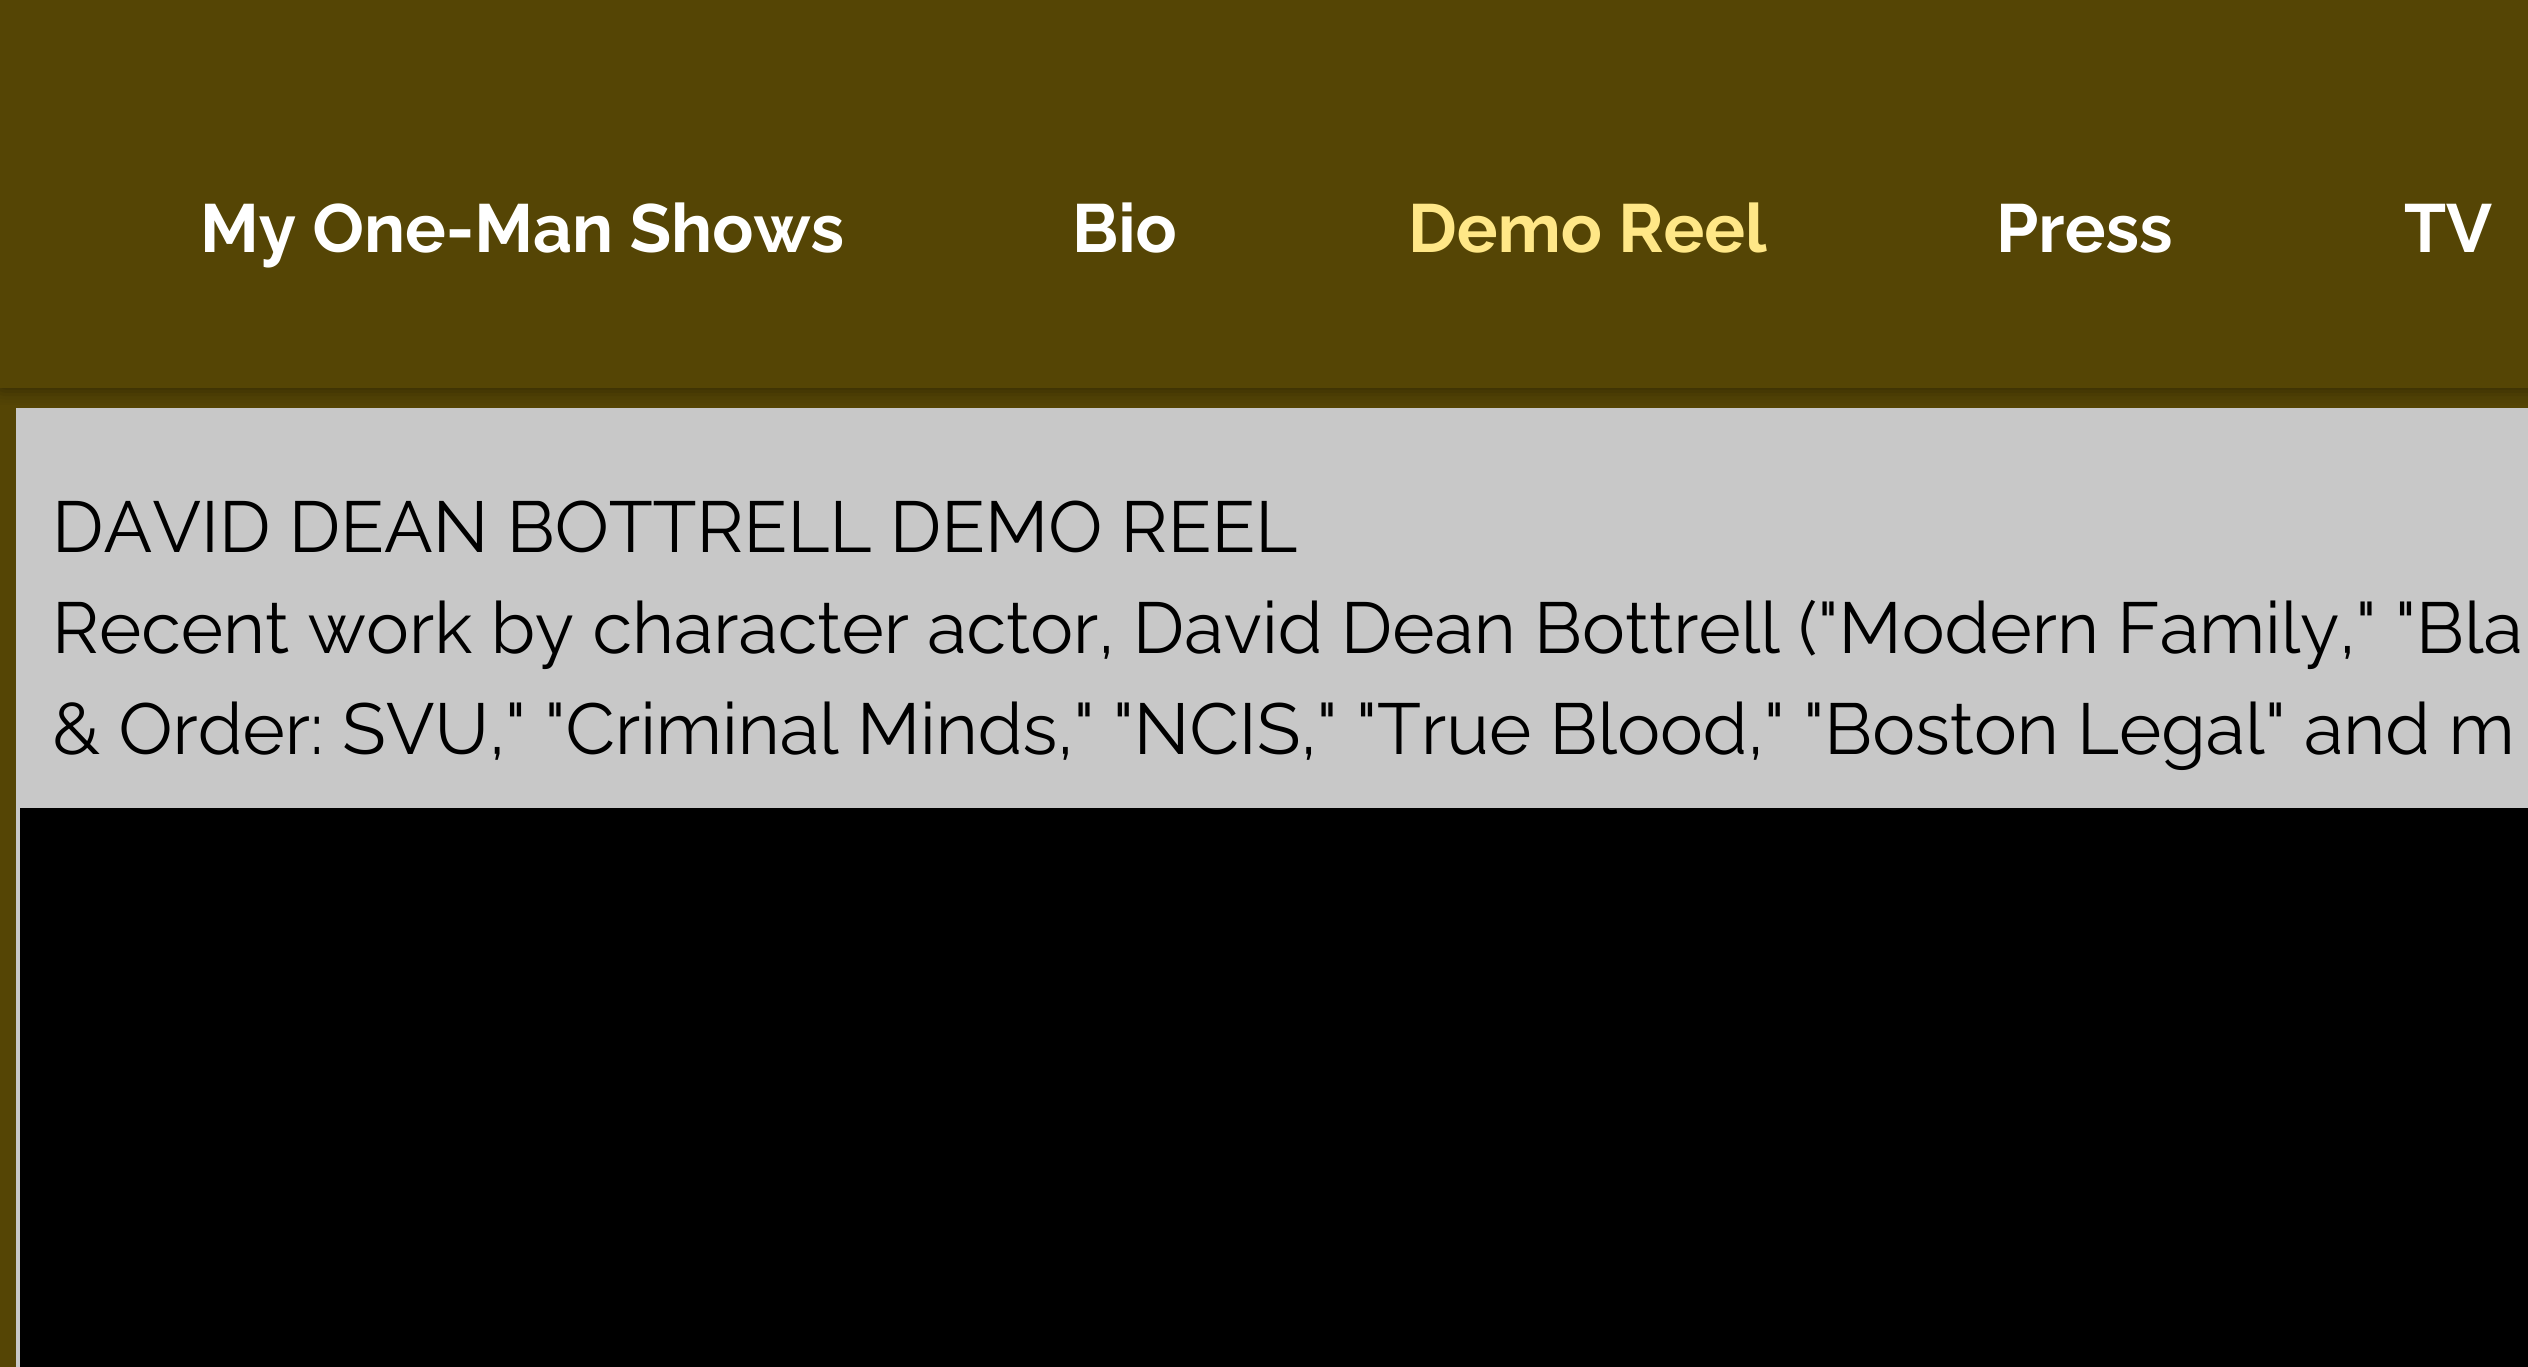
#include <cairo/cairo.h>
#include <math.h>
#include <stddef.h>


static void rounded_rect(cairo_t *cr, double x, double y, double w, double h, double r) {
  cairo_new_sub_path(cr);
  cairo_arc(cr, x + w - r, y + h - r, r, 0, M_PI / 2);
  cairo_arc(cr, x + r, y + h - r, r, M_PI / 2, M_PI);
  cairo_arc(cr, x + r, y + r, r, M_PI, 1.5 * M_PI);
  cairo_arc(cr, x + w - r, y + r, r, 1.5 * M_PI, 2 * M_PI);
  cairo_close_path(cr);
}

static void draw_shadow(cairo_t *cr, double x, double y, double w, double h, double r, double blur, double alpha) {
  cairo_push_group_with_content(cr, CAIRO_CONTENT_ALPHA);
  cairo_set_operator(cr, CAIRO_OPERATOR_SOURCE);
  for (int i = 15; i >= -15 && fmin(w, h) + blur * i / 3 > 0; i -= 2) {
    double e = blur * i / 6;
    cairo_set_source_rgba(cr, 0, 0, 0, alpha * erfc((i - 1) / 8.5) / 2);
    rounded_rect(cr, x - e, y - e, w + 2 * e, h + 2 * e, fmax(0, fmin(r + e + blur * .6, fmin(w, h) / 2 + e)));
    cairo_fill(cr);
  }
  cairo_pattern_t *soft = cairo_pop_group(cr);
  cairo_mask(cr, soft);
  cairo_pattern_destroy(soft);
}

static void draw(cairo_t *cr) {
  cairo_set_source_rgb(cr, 85 / 255.0, 69 / 255.0, 5 / 255.0);
  cairo_paint(cr);
  cairo_save(cr);
  cairo_rectangle(cr, 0, 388, 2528, 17);
  cairo_clip(cr);
  cairo_set_source_rgb(cr, 0, 0, 0);
  draw_shadow(cr, 0, 0, 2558, 388, 0, 10, 0.5);
  cairo_restore(cr);
  cairo_set_source_rgb(cr, 200 / 255.0, 200 / 255.0, 200 / 255.0);
  cairo_rectangle(cr, 16, 408, 2512, 959);
  cairo_fill(cr);
  cairo_set_source_rgb(cr, 0, 0, 0);
  cairo_rectangle(cr, 20, 808, 2508, 559);
  cairo_fill(cr);
  cairo_select_font_face(cr, "Raleway", CAIRO_FONT_SLANT_NORMAL, CAIRO_FONT_WEIGHT_BOLD);
  cairo_set_font_size(cr, 68);
  cairo_set_source_rgb(cr, 1, 1, 1);
  cairo_move_to(cr, 200, 252);
  cairo_show_text(cr, "My One-Man Shows");
  cairo_move_to(cr, 1072, 252);
  cairo_show_text(cr, "Bio");
  cairo_set_source_rgb(cr, 1, 231 / 255.0, 135 / 255.0);
  cairo_move_to(cr, 1408, 252);
  cairo_show_text(cr, "Demo Reel");
  cairo_set_source_rgb(cr, 1, 1, 1);
  cairo_move_to(cr, 1996, 252);
  cairo_show_text(cr, "Press");
  cairo_move_to(cr, 2404, 252);
  cairo_show_text(cr, "TV");
  cairo_select_font_face(cr, "Raleway", CAIRO_FONT_SLANT_NORMAL, CAIRO_FONT_WEIGHT_NORMAL);
  cairo_set_font_size(cr, 72);
  cairo_set_source_rgb(cr, 0, 0, 0);
  cairo_move_to(cr, 52, 552);
  cairo_show_text(cr, "DAVID DEAN BOTTRELL DEMO REEL");
  cairo_move_to(cr, 52, 653);
  cairo_show_text(cr, "Recent work by character actor, David Dean Bottrell (\"Modern Family,\" \"Bla");
  cairo_move_to(cr, 52, 754);
  cairo_show_text(cr, "& Order: SVU,\" \"Criminal Minds,\" \"NCIS,\" \"True Blood,\" \"Boston Legal\" and m");
}

int main(void) {
  cairo_surface_t *surface = cairo_image_surface_create(CAIRO_FORMAT_RGB24, 2528, 1367);
  cairo_t *cr = cairo_create(surface);
  cairo_font_options_t *options = cairo_font_options_create();
  cairo_font_options_set_hint_metrics(options, CAIRO_HINT_METRICS_OFF);
  cairo_font_options_set_hint_style(options, CAIRO_HINT_STYLE_NONE);
  cairo_set_font_options(cr, options);
  cairo_set_miter_limit(cr, 4);
  draw(cr);
  cairo_surface_write_to_png(surface, "out.png");
  cairo_font_options_destroy(options);
  cairo_destroy(cr);
  cairo_surface_destroy(surface);
  return 0;
}
